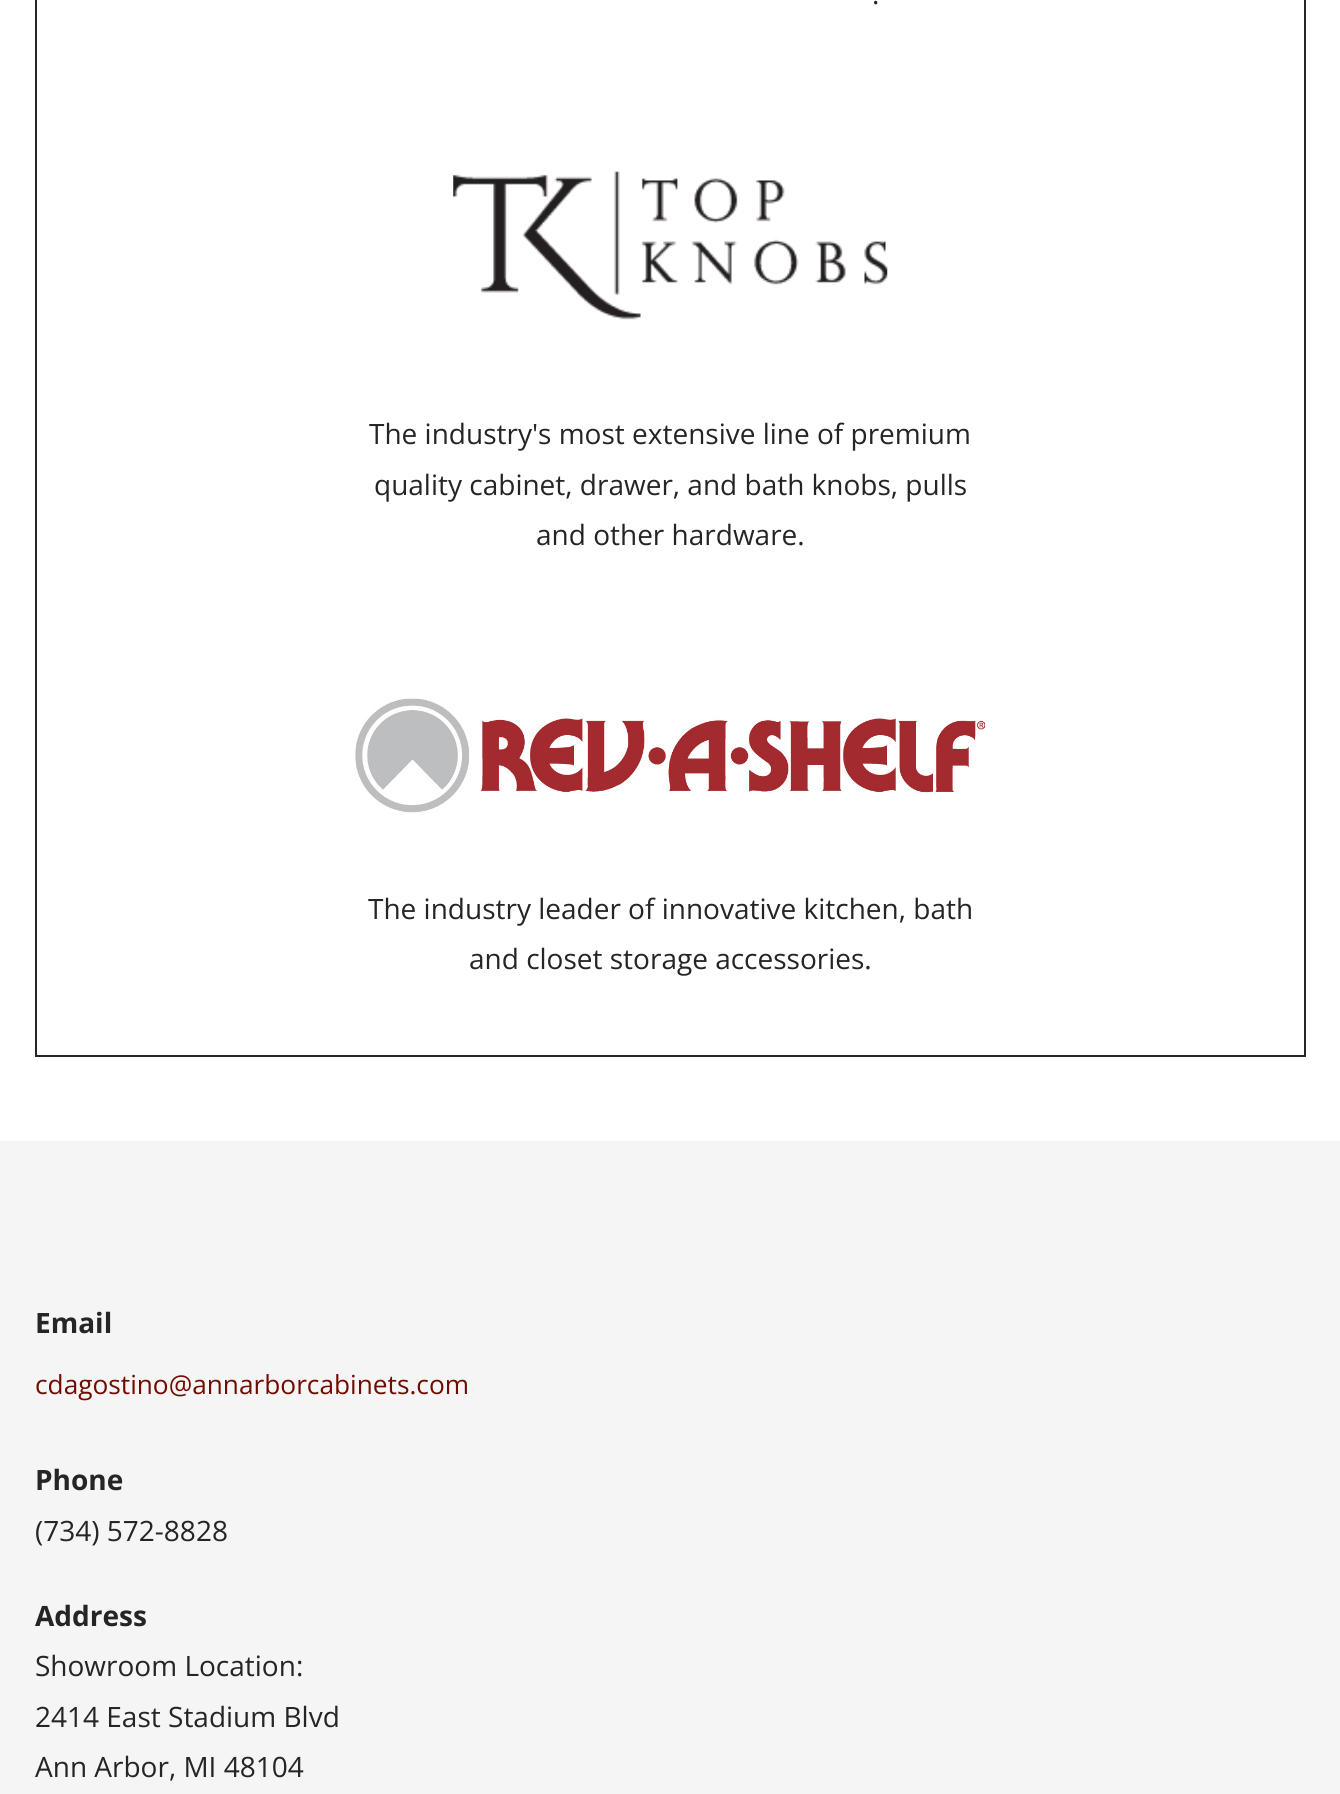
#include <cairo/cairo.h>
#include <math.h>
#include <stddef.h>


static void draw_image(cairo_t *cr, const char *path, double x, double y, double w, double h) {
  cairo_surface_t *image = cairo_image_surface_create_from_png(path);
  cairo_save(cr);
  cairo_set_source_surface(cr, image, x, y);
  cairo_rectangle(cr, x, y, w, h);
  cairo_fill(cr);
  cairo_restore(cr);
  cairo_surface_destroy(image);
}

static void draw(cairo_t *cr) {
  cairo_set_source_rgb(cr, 1, 1, 1);
  cairo_paint(cr);
  cairo_rectangle(cr, 36, -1, 1269, 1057);
  cairo_set_source_rgb(cr, 37 / 255.0, 37 / 255.0, 37 / 255.0);
  cairo_stroke(cr);
  draw_image(cr, "images/1.png", 453, 171, 435, 149);
  draw_image(cr, "images/2.png", 355, 698, 631, 115);
  cairo_set_source_rgb(cr, 245 / 255.0, 245 / 255.0, 245 / 255.0);
  cairo_rectangle(cr, 0, 1141, 1340, 653);
  cairo_fill(cr);
  cairo_select_font_face(cr, "Open Sans", CAIRO_FONT_SLANT_NORMAL, CAIRO_FONT_WEIGHT_NORMAL);
  cairo_set_font_size(cr, 28);
  cairo_set_source_rgb(cr, 37 / 255.0, 37 / 255.0, 37 / 255.0);
  cairo_move_to(cr, 872, 4);
  cairo_show_text(cr, ".");
  cairo_move_to(cr, 369, 444);
  cairo_show_text(cr, "The industry's most extensive line of premium");
  cairo_move_to(cr, 374, 495);
  cairo_show_text(cr, "quality cabinet, drawer, and bath knobs, pulls");
  cairo_move_to(cr, 536, 545);
  cairo_show_text(cr, "and other hardware.");
  cairo_move_to(cr, 368, 919);
  cairo_show_text(cr, "The industry leader of innovative kitchen, bath");
  cairo_move_to(cr, 469, 969);
  cairo_show_text(cr, "and closet storage accessories.");
  cairo_select_font_face(cr, "Open Sans", CAIRO_FONT_SLANT_NORMAL, CAIRO_FONT_WEIGHT_BOLD);
  cairo_move_to(cr, 35, 1333);
  cairo_show_text(cr, "Email");
  cairo_select_font_face(cr, "Open Sans", CAIRO_FONT_SLANT_NORMAL, CAIRO_FONT_WEIGHT_NORMAL);
  cairo_set_font_size(cr, 26.25);
  cairo_set_source_rgb(cr, 114 / 255.0, 11 / 255.0, 0);
  cairo_move_to(cr, 35, 1394);
  cairo_show_text(cr, "cdagostino@annarborcabinets.com");
  cairo_select_font_face(cr, "Open Sans", CAIRO_FONT_SLANT_NORMAL, CAIRO_FONT_WEIGHT_BOLD);
  cairo_set_font_size(cr, 28);
  cairo_set_source_rgb(cr, 37 / 255.0, 37 / 255.0, 37 / 255.0);
  cairo_move_to(cr, 35, 1490);
  cairo_show_text(cr, "Phone");
  cairo_select_font_face(cr, "Open Sans", CAIRO_FONT_SLANT_NORMAL, CAIRO_FONT_WEIGHT_NORMAL);
  cairo_move_to(cr, 35, 1541);
  cairo_show_text(cr, "(734) 572-8828");
  cairo_select_font_face(cr, "Open Sans", CAIRO_FONT_SLANT_NORMAL, CAIRO_FONT_WEIGHT_BOLD);
  cairo_move_to(cr, 35, 1626);
  cairo_show_text(cr, "Address");
  cairo_select_font_face(cr, "Open Sans", CAIRO_FONT_SLANT_NORMAL, CAIRO_FONT_WEIGHT_NORMAL);
  cairo_move_to(cr, 35, 1676);
  cairo_show_text(cr, "Showroom Location:");
  cairo_move_to(cr, 35, 1727);
  cairo_show_text(cr, "2414 East Stadium Blvd");
  cairo_move_to(cr, 35, 1777);
  cairo_show_text(cr, "Ann Arbor, MI 48104");
}

int main(void) {
  cairo_surface_t *surface = cairo_image_surface_create(CAIRO_FORMAT_RGB24, 1340, 1794);
  cairo_t *cr = cairo_create(surface);
  cairo_font_options_t *options = cairo_font_options_create();
  cairo_font_options_set_hint_metrics(options, CAIRO_HINT_METRICS_OFF);
  cairo_font_options_set_hint_style(options, CAIRO_HINT_STYLE_NONE);
  cairo_set_font_options(cr, options);
  cairo_set_miter_limit(cr, 4);
  draw(cr);
  cairo_surface_write_to_png(surface, "out.png");
  cairo_font_options_destroy(options);
  cairo_destroy(cr);
  cairo_surface_destroy(surface);
  return 0;
}
